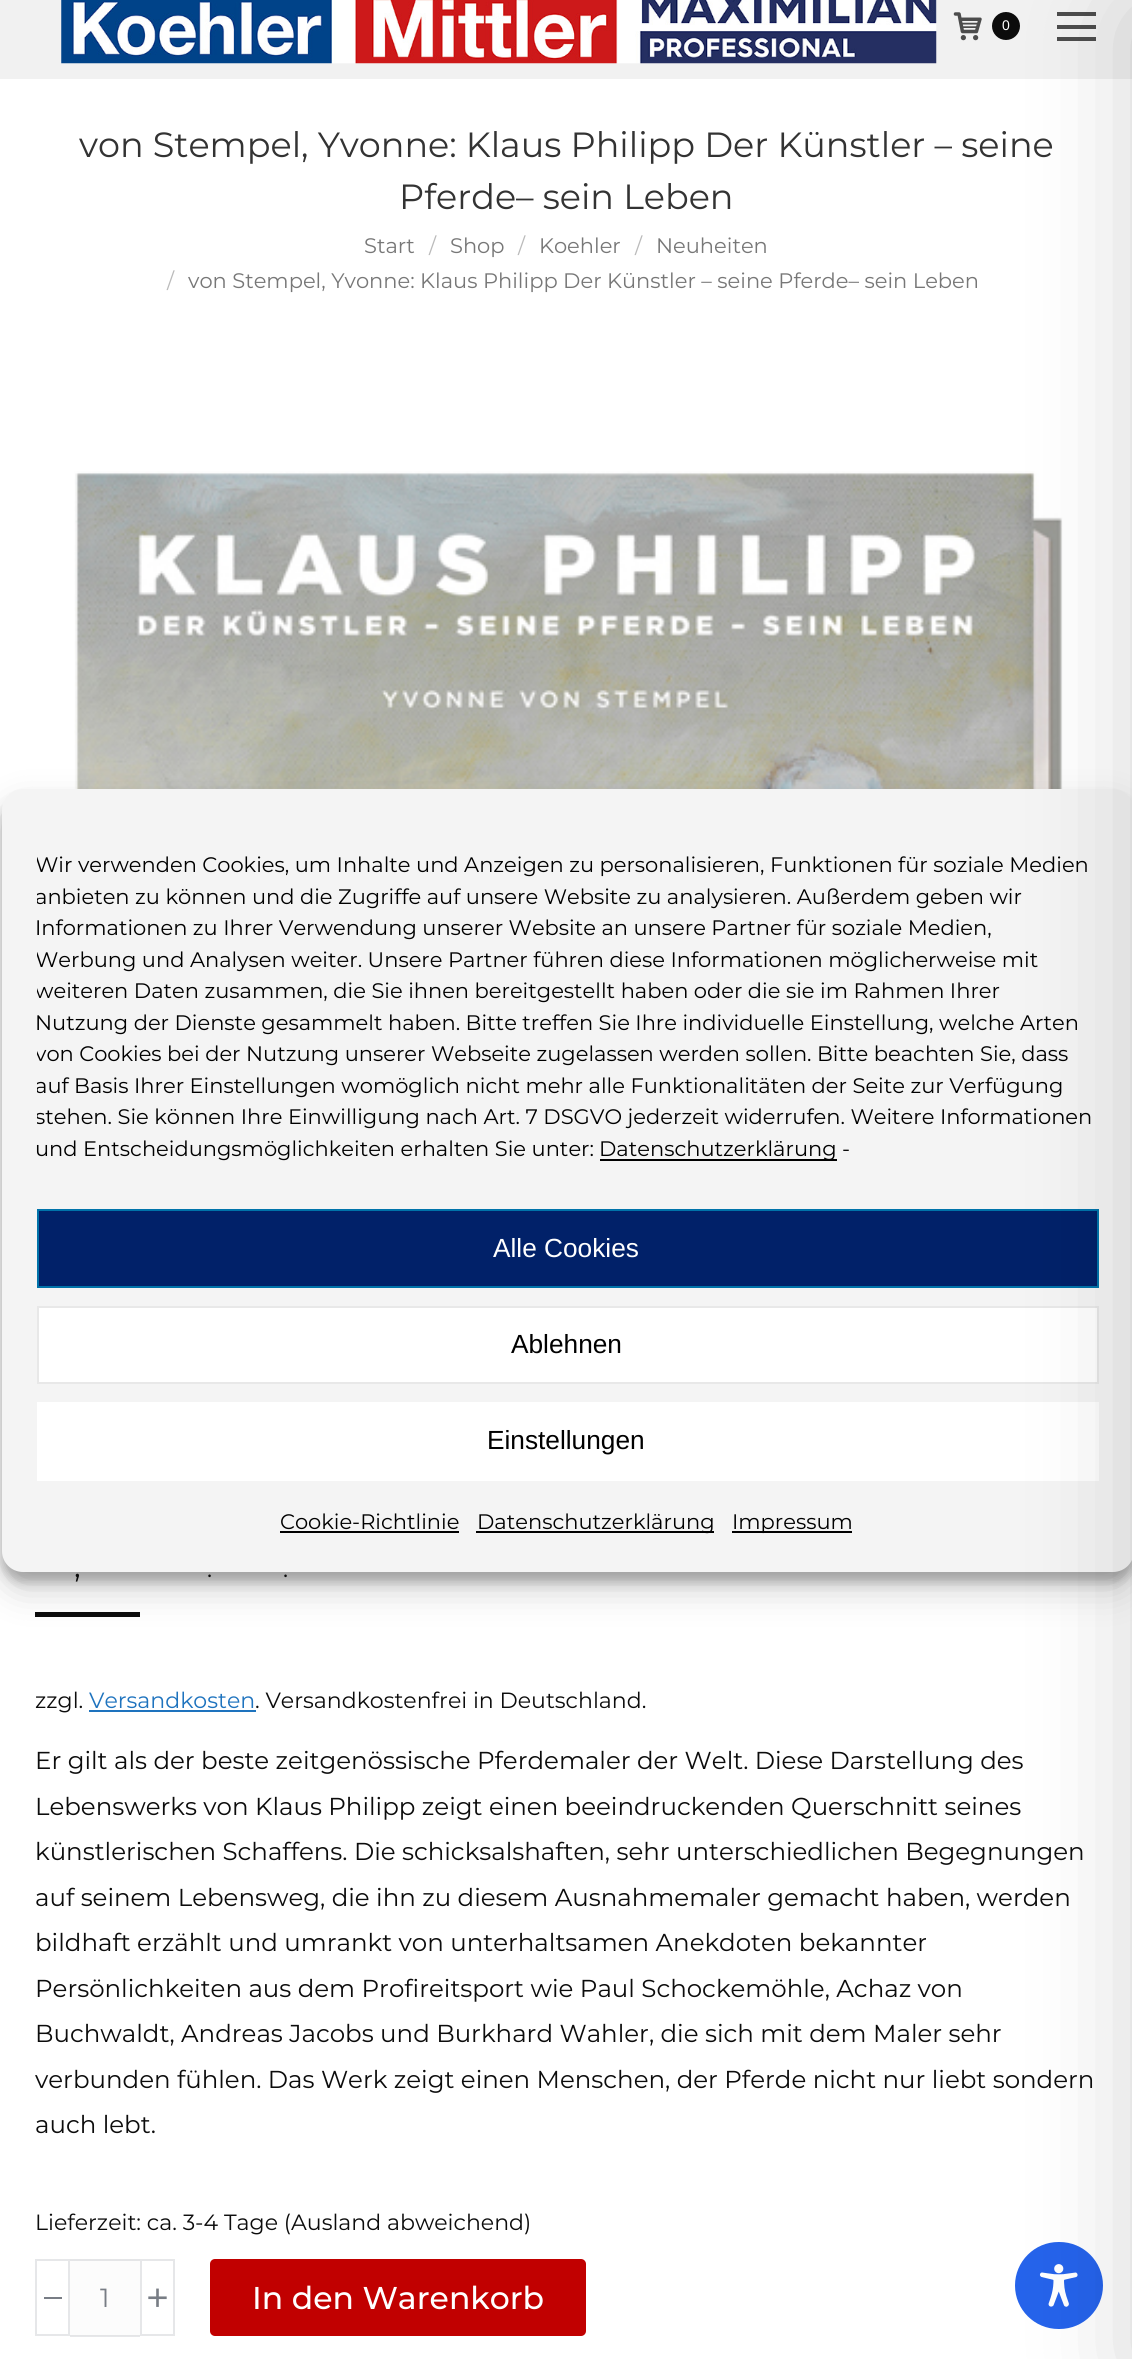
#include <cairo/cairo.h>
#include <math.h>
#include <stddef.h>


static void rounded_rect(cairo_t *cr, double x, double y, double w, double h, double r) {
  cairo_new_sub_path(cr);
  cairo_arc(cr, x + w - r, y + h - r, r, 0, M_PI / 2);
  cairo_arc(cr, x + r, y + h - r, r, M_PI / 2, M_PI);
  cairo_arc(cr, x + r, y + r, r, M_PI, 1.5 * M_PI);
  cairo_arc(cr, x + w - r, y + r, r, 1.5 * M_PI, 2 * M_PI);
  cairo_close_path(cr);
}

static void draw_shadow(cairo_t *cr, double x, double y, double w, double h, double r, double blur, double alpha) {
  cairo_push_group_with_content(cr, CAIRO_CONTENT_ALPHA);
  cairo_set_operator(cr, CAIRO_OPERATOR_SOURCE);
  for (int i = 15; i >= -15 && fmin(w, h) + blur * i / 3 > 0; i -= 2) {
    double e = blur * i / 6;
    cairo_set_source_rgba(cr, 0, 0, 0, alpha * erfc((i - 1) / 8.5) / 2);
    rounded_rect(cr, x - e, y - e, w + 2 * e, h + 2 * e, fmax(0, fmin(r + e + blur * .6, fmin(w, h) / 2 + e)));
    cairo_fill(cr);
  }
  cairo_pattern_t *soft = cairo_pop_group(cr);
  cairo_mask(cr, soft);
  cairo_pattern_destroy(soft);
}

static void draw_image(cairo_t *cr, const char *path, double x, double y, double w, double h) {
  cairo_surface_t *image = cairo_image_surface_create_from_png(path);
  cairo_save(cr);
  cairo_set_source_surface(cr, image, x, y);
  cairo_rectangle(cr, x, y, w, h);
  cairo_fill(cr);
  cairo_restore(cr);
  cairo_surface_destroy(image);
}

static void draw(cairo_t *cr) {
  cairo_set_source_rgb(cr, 1, 1, 1);
  cairo_paint(cr);
  cairo_set_source_rgb(cr, 230 / 255.0, 231 / 255.0, 233 / 255.0);
  cairo_rectangle(cr, 70, 2336, 70, 1);
  cairo_fill(cr);
  cairo_set_source_rgba(cr, 232 / 255.0, 232 / 255.0, 232 / 255.0, 0.6);
  cairo_rectangle(cr, 0, 0, 1132, 79);
  cairo_fill(cr);
  draw_image(cr, "images/2.png", 953, 12, 29, 29);
  cairo_set_source_rgb(cr, 12 / 255.0, 12 / 255.0, 12 / 255.0);
  cairo_arc(cr, 1006, 26, 14, 0, 2 * M_PI);
  cairo_fill(cr);
  cairo_set_source_rgb(cr, 76 / 255.0, 76 / 255.0, 76 / 255.0);
  cairo_rectangle(cr, 1057, 12, 39, 4);
  cairo_fill(cr);
  cairo_rectangle(cr, 1057, 25, 39, 4);
  cairo_fill(cr);
  cairo_rectangle(cr, 1057, 37, 39, 4);
  cairo_fill(cr);
  draw_image(cr, "images/3.png", 74, 471, 989, 318);
  cairo_set_source_rgb(cr, 0, 0, 0);
  draw_shadow(cr, 2, 800, 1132, 782, 21, 5, 0.23);
  cairo_set_source_rgb(cr, 12 / 255.0, 12 / 255.0, 12 / 255.0);
  cairo_rectangle(cr, 35, 1612, 105, 5);
  cairo_fill(cr);
  cairo_set_source_rgb(cr, 0, 0, 0);
  draw_shadow(cr, 2, 807, 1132, 782, 21, 17.5, 0.19);
  cairo_set_source_rgb(cr, 244 / 255.0, 244 / 255.0, 244 / 255.0);
  rounded_rect(cr, 2, 789, 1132, 783, 21);
  cairo_fill(cr);
  cairo_set_source_rgb(cr, 1 / 255.0, 33 / 255.0, 105 / 255.0);
  cairo_rectangle(cr, 38, 1210, 1060, 77);
  cairo_fill_preserve(cr);
  cairo_set_source_rgb(cr, 0, 115 / 255.0, 170 / 255.0);
  cairo_stroke(cr);
  cairo_set_source_rgb(cr, 1, 1, 1);
  cairo_rectangle(cr, 38, 1307, 1060, 76);
  cairo_fill_preserve(cr);
  cairo_set_source_rgb(cr, 232 / 255.0, 232 / 255.0, 232 / 255.0);
  cairo_stroke(cr);
  cairo_set_source_rgb(cr, 1, 1, 1);
  cairo_rectangle(cr, 37, 1402, 1062, 79);
  cairo_fill(cr);
  cairo_set_source_rgb(cr, 37 / 255.0, 99 / 255.0, 235 / 255.0);
  rounded_rect(cr, 1015, 2242, 88, 87, 43.5);
  cairo_fill(cr);
  draw_image(cr, "images/5.png", 1039, 2264, 39, 43);
  cairo_set_source_rgb(cr, 0, 0, 0);
  draw_shadow(cr, 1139, 18, 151, 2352, 0, 52.5, 0.2);
  draw_image(cr, "images/1.png", 61, 0, 876, 64);
  cairo_set_source_rgb(cr, 30 / 255.0, 115 / 255.0, 190 / 255.0);
  cairo_rectangle(cr, 89, 1710, 167, 2);
  cairo_fill(cr);
  cairo_rectangle(cr, 36, 2260, 33, 75);
  cairo_set_source_rgb(cr, 230 / 255.0, 231 / 255.0, 233 / 255.0);
  cairo_stroke(cr);
  cairo_set_source_rgb(cr, 120 / 255.0, 125 / 255.0, 133 / 255.0);
  cairo_rectangle(cr, 44, 2297, 18, 2);
  cairo_fill(cr);
  cairo_set_source_rgb(cr, 252 / 255.0, 252 / 255.0, 252 / 255.0);
  cairo_rectangle(cr, 70, 2261, 70, 74);
  cairo_fill(cr);
  cairo_set_source_rgb(cr, 228 / 255.0, 229 / 255.0, 231 / 255.0);
  cairo_rectangle(cr, 70, 2335, 70, 1);
  cairo_fill(cr);
  cairo_rectangle(cr, 70, 2259, 70, 2);
  cairo_fill(cr);
  cairo_rectangle(cr, 141, 2260, 33, 75);
  cairo_set_source_rgb(cr, 230 / 255.0, 231 / 255.0, 233 / 255.0);
  cairo_stroke(cr);
  draw_image(cr, "images/4.png", 148, 2288, 19, 19);
  cairo_set_source_rgb(cr, 193 / 255.0, 0, 0);
  rounded_rect(cr, 210, 2259, 376, 77, 5);
  cairo_fill(cr);
  cairo_set_source_rgb(cr, 0, 0, 0);
  cairo_rectangle(cr, 600, 1159, 237, 2);
  cairo_fill(cr);
  cairo_rectangle(cr, 280, 1531, 179, 2);
  cairo_fill(cr);
  cairo_rectangle(cr, 476, 1531, 238, 2);
  cairo_fill(cr);
  cairo_rectangle(cr, 732, 1531, 120, 2);
  cairo_fill(cr);
  cairo_select_font_face(cr, "Liberation Sans", CAIRO_FONT_SLANT_NORMAL, CAIRO_FONT_WEIGHT_NORMAL);
  cairo_set_font_size(cr, 14);
  cairo_set_source_rgb(cr, 1, 1, 1);
  cairo_move_to(cr, 1002, 30);
  cairo_show_text(cr, "0");
  cairo_select_font_face(cr, "Montserrat", CAIRO_FONT_SLANT_NORMAL, CAIRO_FONT_WEIGHT_NORMAL);
  cairo_set_font_size(cr, 35);
  cairo_set_source_rgb(cr, 51 / 255.0, 51 / 255.0, 51 / 255.0);
  cairo_move_to(cr, 79, 157);
  cairo_show_text(cr, "von Stempel, Yvonne: Klaus Philipp Der Künstler – seine");
  cairo_move_to(cr, 399, 209);
  cairo_show_text(cr, "Pferde– sein Leben");
  cairo_set_font_size(cr, 21);
  cairo_set_source_rgb(cr, 119 / 255.0, 119 / 255.0, 119 / 255.0);
  cairo_move_to(cr, 364, 253);
  cairo_show_text(cr, "Start");
  cairo_set_source_rgb(cr, 187 / 255.0, 187 / 255.0, 187 / 255.0);
  cairo_move_to(cr, 429, 253);
  cairo_show_text(cr, "/");
  cairo_set_source_rgb(cr, 119 / 255.0, 119 / 255.0, 119 / 255.0);
  cairo_move_to(cr, 450, 253);
  cairo_show_text(cr, "Shop");
  cairo_set_source_rgb(cr, 187 / 255.0, 187 / 255.0, 187 / 255.0);
  cairo_move_to(cr, 518, 253);
  cairo_show_text(cr, "/");
  cairo_set_source_rgb(cr, 119 / 255.0, 119 / 255.0, 119 / 255.0);
  cairo_move_to(cr, 539, 253);
  cairo_show_text(cr, "Koehler");
  cairo_set_source_rgb(cr, 187 / 255.0, 187 / 255.0, 187 / 255.0);
  cairo_move_to(cr, 635, 253);
  cairo_show_text(cr, "/");
  cairo_set_source_rgb(cr, 119 / 255.0, 119 / 255.0, 119 / 255.0);
  cairo_move_to(cr, 656, 253);
  cairo_show_text(cr, "Neuheiten");
  cairo_set_source_rgb(cr, 187 / 255.0, 187 / 255.0, 187 / 255.0);
  cairo_move_to(cr, 167, 288);
  cairo_show_text(cr, "/");
  cairo_set_source_rgb(cr, 119 / 255.0, 119 / 255.0, 119 / 255.0);
  cairo_move_to(cr, 188, 288);
  cairo_show_text(cr, "von Stempel, Yvonne: Klaus Philipp Der Künstler – seine Pferde– sein Leben");
  cairo_set_font_size(cr, 31.5);
  cairo_set_source_rgb(cr, 12 / 255.0, 12 / 255.0, 12 / 255.0);
  cairo_move_to(cr, 74, 1577);
  cairo_show_text(cr, ",");
  cairo_set_font_size(cr, 24);
  cairo_move_to(cr, 207, 1577);
  cairo_show_text(cr, ".");
  cairo_move_to(cr, 283, 1577);
  cairo_show_text(cr, ".");
  cairo_set_font_size(cr, 22.05);
  cairo_move_to(cr, 35, 1708);
  cairo_show_text(cr, "zzgl.");
  cairo_set_source_rgb(cr, 30 / 255.0, 115 / 255.0, 190 / 255.0);
  cairo_move_to(cr, 89, 1708);
  cairo_show_text(cr, "Versandkosten");
  cairo_set_source_rgb(cr, 12 / 255.0, 12 / 255.0, 12 / 255.0);
  cairo_move_to(cr, 255, 1708);
  cairo_show_text(cr, ". Versandkostenfrei in Deutschland.");
  cairo_set_font_size(cr, 24.5);
  cairo_move_to(cr, 35, 1769);
  cairo_show_text(cr, "Er gilt als der beste zeitgenössische Pferdemaler der Welt. Diese Darstellung des");
  cairo_move_to(cr, 35, 1815);
  cairo_show_text(cr, "Lebenswerks von Klaus Philipp zeigt einen beeindruckenden Querschnitt seines");
  cairo_move_to(cr, 35, 1860);
  cairo_show_text(cr, "künstlerischen Schaffens. Die schicksalshaften, sehr unterschiedlichen Begegnungen");
  cairo_move_to(cr, 35, 1906);
  cairo_show_text(cr, "auf seinem Lebensweg, die ihn zu diesem Ausnahmemaler gemacht haben, werden");
  cairo_move_to(cr, 35, 1951);
  cairo_show_text(cr, "bildhaft erzählt und umrankt von unterhaltsamen Anekdoten bekannter");
  cairo_move_to(cr, 35, 1997);
  cairo_show_text(cr, "Persönlichkeiten aus dem Profireitsport wie Paul Schockemöhle, Achaz von");
  cairo_move_to(cr, 35, 2042);
  cairo_show_text(cr, "Buchwaldt, Andreas Jacobs und Burkhard Wahler, die sich mit dem Maler sehr");
  cairo_move_to(cr, 35, 2088);
  cairo_show_text(cr, "verbunden fühlen. Das Werk zeigt einen Menschen, der Pferde nicht nur liebt sondern");
  cairo_move_to(cr, 35, 2133);
  cairo_show_text(cr, "auch lebt.");
  cairo_set_font_size(cr, 22.05);
  cairo_move_to(cr, 35, 2230);
  cairo_show_text(cr, "Lieferzeit: ca. 3-4 Tage (Ausland abweichend)");
  cairo_set_font_size(cr, 26.25);
  cairo_set_source_rgb(cr, 120 / 255.0, 125 / 255.0, 133 / 255.0);
  cairo_move_to(cr, 100, 2307);
  cairo_show_text(cr, "1");
  cairo_select_font_face(cr, "Montserrat Medium", CAIRO_FONT_SLANT_NORMAL, CAIRO_FONT_WEIGHT_NORMAL);
  cairo_set_font_size(cr, 31.5);
  cairo_set_source_rgb(cr, 1, 1, 1);
  cairo_move_to(cr, 252, 2309);
  cairo_show_text(cr, "In den Warenkorb");
  cairo_save(cr);
  cairo_rectangle(cr, 37, 851, 1062, 323);
  cairo_clip(cr);
  cairo_select_font_face(cr, "Montserrat", CAIRO_FONT_SLANT_NORMAL, CAIRO_FONT_WEIGHT_NORMAL);
  cairo_set_font_size(cr, 21);
  cairo_set_source_rgb(cr, 0, 0, 0);
  cairo_move_to(cr, 35, 872);
  cairo_show_text(cr, "Wir verwenden Cookies, um Inhalte und Anzeigen zu personalisieren, Funktionen für soziale Medien");
  cairo_move_to(cr, 35, 904);
  cairo_show_text(cr, "anbieten zu können und die Zugriffe auf unsere Website zu analysieren. Außerdem geben wir");
  cairo_restore(cr);
  cairo_select_font_face(cr, "Montserrat", CAIRO_FONT_SLANT_NORMAL, CAIRO_FONT_WEIGHT_NORMAL);
  cairo_set_font_size(cr, 21);
  cairo_set_source_rgb(cr, 0, 0, 0);
  cairo_move_to(cr, 35, 935);
  cairo_show_text(cr, "Informationen zu Ihrer Verwendung unserer Website an unsere Partner für soziale Medien,");
  cairo_save(cr);
  cairo_rectangle(cr, 37, 851, 1062, 323);
  cairo_clip(cr);
  cairo_move_to(cr, 35, 967);
  cairo_show_text(cr, "Werbung und Analysen weiter. Unsere Partner führen diese Informationen möglicherweise mit");
  cairo_move_to(cr, 35, 998);
  cairo_show_text(cr, "weiteren Daten zusammen, die Sie ihnen bereitgestellt haben oder die sie im Rahmen Ihrer");
  cairo_restore(cr);
  cairo_move_to(cr, 35, 1030);
  cairo_show_text(cr, "Nutzung der Dienste gesammelt haben. Bitte treffen Sie Ihre individuelle Einstellung, welche Arten");
  cairo_save(cr);
  cairo_rectangle(cr, 37, 851, 1062, 323);
  cairo_clip(cr);
  cairo_move_to(cr, 35, 1061);
  cairo_show_text(cr, "von Cookies bei der Nutzung unserer Webseite zugelassen werden sollen. Bitte beachten Sie, dass");
  cairo_move_to(cr, 35, 1093);
  cairo_show_text(cr, "auf Basis Ihrer Einstellungen womöglich nicht mehr alle Funktionalitäten der Seite zur Verfügung");
  cairo_move_to(cr, 35, 1124);
  cairo_show_text(cr, "stehen. Sie können Ihre Einwilligung nach Art. 7 DSGVO jederzeit widerrufen. Weitere Informationen");
  cairo_restore(cr);
  cairo_move_to(cr, 35, 1156);
  cairo_show_text(cr, "und Entscheidungsmöglichkeiten erhalten Sie unter:");
  cairo_move_to(cr, 599, 1156);
  cairo_show_text(cr, "Datenschutzerklärung -");
  cairo_select_font_face(cr, "Liberation Sans", CAIRO_FONT_SLANT_NORMAL, CAIRO_FONT_WEIGHT_NORMAL);
  cairo_set_font_size(cr, 26.25);
  cairo_set_source_rgb(cr, 1, 1, 1);
  cairo_move_to(cr, 493, 1257);
  cairo_show_text(cr, "Alle Cookies");
  cairo_set_source_rgb(cr, 0, 0, 0);
  cairo_move_to(cr, 511, 1353);
  cairo_show_text(cr, "Ablehnen");
  cairo_move_to(cr, 487, 1449);
  cairo_show_text(cr, "Einstellungen");
  cairo_select_font_face(cr, "Montserrat", CAIRO_FONT_SLANT_NORMAL, CAIRO_FONT_WEIGHT_NORMAL);
  cairo_set_font_size(cr, 21);
  cairo_move_to(cr, 280, 1529);
  cairo_show_text(cr, "Cookie-Richtlinie");
  cairo_move_to(cr, 477, 1529);
  cairo_show_text(cr, "Datenschutzerklärung");
  cairo_move_to(cr, 732, 1529);
  cairo_show_text(cr, "Impressum");
}

int main(void) {
  cairo_surface_t *surface = cairo_image_surface_create(CAIRO_FORMAT_RGB24, 1132, 2359);
  cairo_t *cr = cairo_create(surface);
  cairo_font_options_t *options = cairo_font_options_create();
  cairo_font_options_set_hint_metrics(options, CAIRO_HINT_METRICS_OFF);
  cairo_font_options_set_hint_style(options, CAIRO_HINT_STYLE_NONE);
  cairo_set_font_options(cr, options);
  cairo_set_miter_limit(cr, 4);
  draw(cr);
  cairo_surface_write_to_png(surface, "out.png");
  cairo_font_options_destroy(options);
  cairo_destroy(cr);
  cairo_surface_destroy(surface);
  return 0;
}
